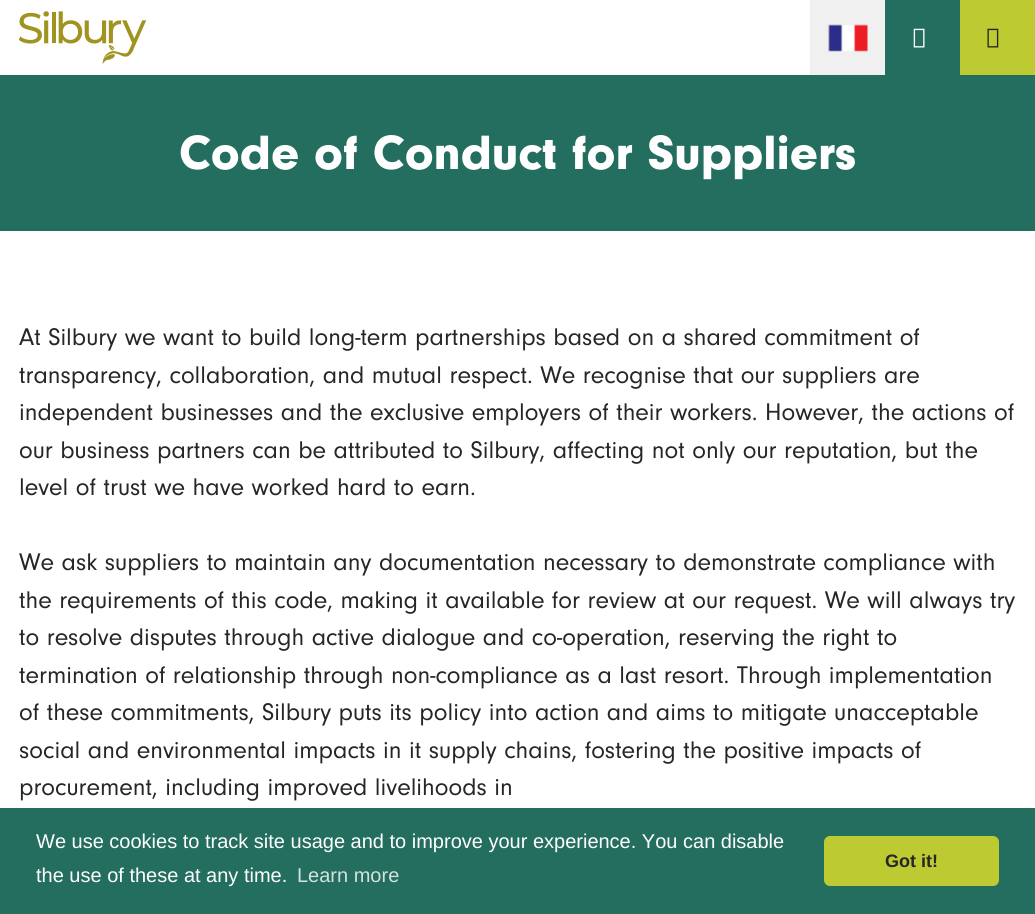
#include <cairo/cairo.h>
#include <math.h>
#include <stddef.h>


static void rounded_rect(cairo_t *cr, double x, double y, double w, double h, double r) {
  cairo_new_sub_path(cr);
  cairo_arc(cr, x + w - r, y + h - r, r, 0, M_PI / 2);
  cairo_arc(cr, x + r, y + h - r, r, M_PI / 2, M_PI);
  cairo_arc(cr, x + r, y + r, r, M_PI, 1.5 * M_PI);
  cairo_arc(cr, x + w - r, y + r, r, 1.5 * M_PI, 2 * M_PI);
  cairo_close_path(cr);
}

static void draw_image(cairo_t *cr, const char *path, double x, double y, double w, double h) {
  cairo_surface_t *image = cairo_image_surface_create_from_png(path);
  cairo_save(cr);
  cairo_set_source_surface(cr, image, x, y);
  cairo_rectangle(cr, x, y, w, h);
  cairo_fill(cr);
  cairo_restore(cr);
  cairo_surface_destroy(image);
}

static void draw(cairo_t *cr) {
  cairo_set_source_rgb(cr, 1, 1, 1);
  cairo_paint(cr);
  draw_image(cr, "images/1.png", 19, 11, 127, 53);
  cairo_set_source_rgb(cr, 240 / 255.0, 240 / 255.0, 240 / 255.0);
  cairo_rectangle(cr, 810, 0, 75, 75);
  cairo_fill(cr);
  draw_image(cr, "images/2.png", 828, 24, 40, 28);
  cairo_set_source_rgb(cr, 35 / 255.0, 110 / 255.0, 94 / 255.0);
  cairo_rectangle(cr, 885, 0, 75, 75);
  cairo_fill(cr);
  draw_image(cr, "images/3.png", 913, 28, 12, 20);
  cairo_set_source_rgb(cr, 190 / 255.0, 202 / 255.0, 49 / 255.0);
  cairo_rectangle(cr, 960, 0, 75, 75);
  cairo_fill(cr);
  draw_image(cr, "images/4.png", 987, 28, 12, 20);
  cairo_set_source_rgb(cr, 35 / 255.0, 110 / 255.0, 94 / 255.0);
  cairo_rectangle(cr, 0, 75, 1035, 156);
  cairo_fill(cr);
  cairo_rectangle(cr, 0, 808, 1035, 106);
  cairo_fill(cr);
  cairo_set_source_rgb(cr, 190 / 255.0, 202 / 255.0, 49 / 255.0);
  rounded_rect(cr, 824, 836, 175, 50, 6);
  cairo_fill(cr);
  cairo_select_font_face(cr, "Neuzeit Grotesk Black", CAIRO_FONT_SLANT_NORMAL, CAIRO_FONT_WEIGHT_NORMAL);
  cairo_set_font_size(cr, 50);
  cairo_set_source_rgb(cr, 1, 1, 1);
  cairo_move_to(cr, 179, 169);
  cairo_show_text(cr, "Code of Conduct for Suppliers");
  cairo_select_font_face(cr, "Neuzeit Grotesk", CAIRO_FONT_SLANT_NORMAL, CAIRO_FONT_WEIGHT_NORMAL);
  cairo_set_font_size(cr, 25);
  cairo_set_source_rgb(cr, 38 / 255.0, 38 / 255.0, 38 / 255.0);
  cairo_move_to(cr, 19, 345);
  cairo_show_text(cr, "At Silbury we want to build long-term partnerships based on a shared commitment of");
  cairo_move_to(cr, 19, 383);
  cairo_show_text(cr, "transparency, collaboration, and mutual respect. We recognise that our suppliers are");
  cairo_move_to(cr, 19, 420);
  cairo_show_text(cr, "independent businesses and the exclusive employers of their workers. However, the actions of");
  cairo_move_to(cr, 19, 458);
  cairo_show_text(cr, "our business partners can be attributed to Silbury, affecting not only our reputation, but the");
  cairo_move_to(cr, 19, 495);
  cairo_show_text(cr, "level of trust we have worked hard to earn.");
  cairo_move_to(cr, 19, 570);
  cairo_show_text(cr, "We ask suppliers to maintain any documentation necessary to demonstrate compliance with");
  cairo_move_to(cr, 19, 608);
  cairo_show_text(cr, "the requirements of this code, making it available for review at our request. We will always try");
  cairo_move_to(cr, 19, 645);
  cairo_show_text(cr, "to resolve disputes through active dialogue and co-operation, reserving the right to");
  cairo_move_to(cr, 19, 683);
  cairo_show_text(cr, "termination of relationship through non-compliance as a last resort. Through implementation");
  cairo_move_to(cr, 19, 720);
  cairo_show_text(cr, "of these commitments, Silbury puts its policy into action and aims to mitigate unacceptable");
  cairo_move_to(cr, 19, 758);
  cairo_show_text(cr, "social and environmental impacts in it supply chains, fostering the positive impacts of");
  cairo_move_to(cr, 19, 795);
  cairo_show_text(cr, "procurement, including improved livelihoods in");
  cairo_select_font_face(cr, "Liberation Sans", CAIRO_FONT_SLANT_NORMAL, CAIRO_FONT_WEIGHT_NORMAL);
  cairo_set_font_size(cr, 20);
  cairo_set_source_rgb(cr, 1, 1, 1);
  cairo_move_to(cr, 36, 848);
  cairo_show_text(cr, "We use cookies to track site usage and to improve your experience. You can disable");
  cairo_move_to(cr, 36, 882);
  cairo_show_text(cr, "the use of these at any time.");
  cairo_set_source_rgb(cr, 211 / 255.0, 226 / 255.0, 223 / 255.0);
  cairo_move_to(cr, 297, 882);
  cairo_show_text(cr, "Learn more");
  cairo_select_font_face(cr, "Liberation Sans", CAIRO_FONT_SLANT_NORMAL, CAIRO_FONT_WEIGHT_BOLD);
  cairo_set_font_size(cr, 18);
  cairo_set_source_rgb(cr, 38 / 255.0, 38 / 255.0, 38 / 255.0);
  cairo_move_to(cr, 885, 867);
  cairo_show_text(cr, "Got it!");
}

int main(void) {
  cairo_surface_t *surface = cairo_image_surface_create(CAIRO_FORMAT_RGB24, 1035, 914);
  cairo_t *cr = cairo_create(surface);
  cairo_font_options_t *options = cairo_font_options_create();
  cairo_font_options_set_hint_metrics(options, CAIRO_HINT_METRICS_OFF);
  cairo_font_options_set_hint_style(options, CAIRO_HINT_STYLE_NONE);
  cairo_set_font_options(cr, options);
  cairo_set_miter_limit(cr, 4);
  draw(cr);
  cairo_surface_write_to_png(surface, "out.png");
  cairo_font_options_destroy(options);
  cairo_destroy(cr);
  cairo_surface_destroy(surface);
  return 0;
}
